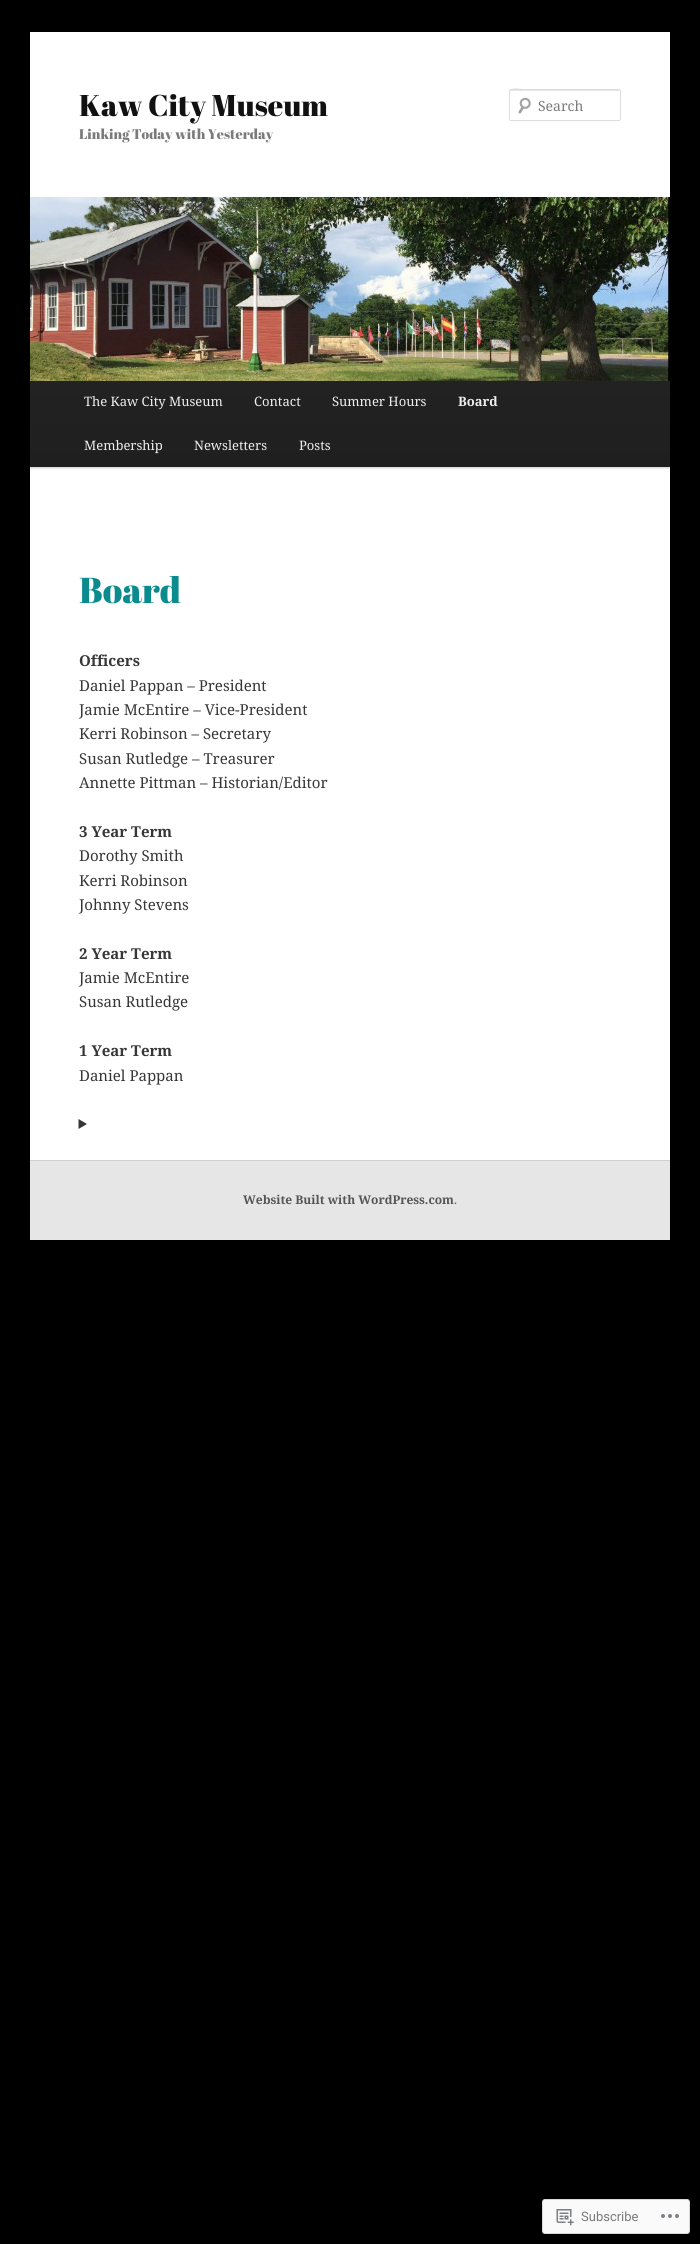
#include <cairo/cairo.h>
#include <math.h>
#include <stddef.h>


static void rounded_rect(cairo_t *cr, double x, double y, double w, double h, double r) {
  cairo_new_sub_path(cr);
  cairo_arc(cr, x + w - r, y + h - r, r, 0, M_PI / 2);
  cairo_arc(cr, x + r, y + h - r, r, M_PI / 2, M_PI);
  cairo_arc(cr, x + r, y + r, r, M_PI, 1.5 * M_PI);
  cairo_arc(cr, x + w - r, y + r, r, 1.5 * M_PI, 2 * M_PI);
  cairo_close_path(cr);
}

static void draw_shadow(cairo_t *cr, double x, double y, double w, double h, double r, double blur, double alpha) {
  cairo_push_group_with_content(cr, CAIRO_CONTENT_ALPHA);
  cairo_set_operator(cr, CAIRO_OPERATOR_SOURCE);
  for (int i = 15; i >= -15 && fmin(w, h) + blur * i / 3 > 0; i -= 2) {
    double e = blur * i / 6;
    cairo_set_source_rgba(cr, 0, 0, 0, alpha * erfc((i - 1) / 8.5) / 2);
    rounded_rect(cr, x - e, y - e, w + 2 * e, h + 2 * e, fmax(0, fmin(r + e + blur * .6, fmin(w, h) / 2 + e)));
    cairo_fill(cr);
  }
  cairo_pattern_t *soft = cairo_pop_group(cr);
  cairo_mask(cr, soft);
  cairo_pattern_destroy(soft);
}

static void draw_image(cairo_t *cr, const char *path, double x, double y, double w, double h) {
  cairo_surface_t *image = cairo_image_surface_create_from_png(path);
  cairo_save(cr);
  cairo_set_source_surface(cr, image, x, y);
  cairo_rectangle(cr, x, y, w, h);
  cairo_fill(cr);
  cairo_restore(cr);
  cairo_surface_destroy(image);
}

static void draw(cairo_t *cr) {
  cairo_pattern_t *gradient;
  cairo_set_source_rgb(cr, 0, 0, 0);
  cairo_paint(cr);
  cairo_set_source_rgb(cr, 1, 1, 1);
  cairo_rectangle(cr, 30, 32, 640, 1128);
  cairo_fill(cr);
  draw_image(cr, "images/1.png", 518, 97, 13, 17);
  cairo_set_source_rgb(cr, 230 / 255.0, 230 / 255.0, 230 / 255.0);
  cairo_new_path(cr);
  cairo_move_to(cr, 511, 91);
  cairo_line_to(cr, 620, 91);
  cairo_line_to(cr, 620, 92);
  cairo_line_to(cr, 619, 90);
  cairo_line_to(cr, 529, 90);
  cairo_curve_to(cr, 525, 90, 510, 85, 510, 92);
  cairo_curve_to(cr, 510, 91, 510, 91, 511, 91);
  cairo_close_path(cr);
  cairo_fill(cr);
  rounded_rect(cr, 509.5, 89.5, 111, 31, 1.5);
  cairo_set_source_rgb(cr, 221 / 255.0, 221 / 255.0, 221 / 255.0);
  cairo_set_line_width(cr, 1);
  cairo_stroke(cr);
  cairo_set_source_rgb(cr, 0, 0, 0);
  draw_shadow(cr, 30, 381, 640, 87, 0, 1, 0.2);
  draw_image(cr, "images/2.png", 30, 197, 640, 184);
  gradient = cairo_pattern_create_linear(350, 380, 350, 467);
  cairo_pattern_add_color_stop_rgba(gradient, 0, 34 / 255.0, 34 / 255.0, 34 / 255.0, 1);
  cairo_pattern_add_color_stop_rgba(gradient, 1, 31 / 255.0, 31 / 255.0, 31 / 255.0, 1);
  cairo_set_source(cr, gradient);
  cairo_pattern_destroy(gradient);
  cairo_rectangle(cr, 30, 381, 640, 86);
  cairo_fill(cr);
  cairo_set_source_rgb(cr, 55 / 255.0, 55 / 255.0, 55 / 255.0);
  cairo_new_path(cr);
  cairo_move_to(cr, 78.5, 1119);
  cairo_line_to(cr, 87, 1124);
  cairo_line_to(cr, 78.5, 1129);
  cairo_close_path(cr);
  cairo_fill(cr);
  cairo_set_source_rgb(cr, 230 / 255.0, 230 / 255.0, 230 / 255.0);
  cairo_rectangle(cr, 30, 1161, 640, 79);
  cairo_fill(cr);
  cairo_set_source_rgb(cr, 207 / 255.0, 207 / 255.0, 207 / 255.0);
  cairo_rectangle(cr, 30, 1160, 640, 1);
  cairo_fill(cr);
  cairo_set_source_rgb(cr, 250 / 255.0, 250 / 255.0, 250 / 255.0);
  rounded_rect(cr, 542.5, 2199.5, 147, 34, 2.5);
  cairo_fill_preserve(cr);
  cairo_set_source_rgb(cr, 216 / 255.0, 216 / 255.0, 218 / 255.0);
  cairo_stroke(cr);
  draw_image(cr, "images/3.png", 556, 2209, 18, 17);
  draw_image(cr, "images/4.png", 661, 2214, 18, 4);
  cairo_select_font_face(cr, "Abril Fatface", CAIRO_FONT_SLANT_NORMAL, CAIRO_FONT_WEIGHT_NORMAL);
  cairo_set_font_size(cr, 30);
  cairo_set_source_rgb(cr, 17 / 255.0, 17 / 255.0, 17 / 255.0);
  cairo_move_to(cr, 79, 116);
  cairo_show_text(cr, "Kaw City Museum");
  cairo_set_font_size(cr, 14);
  cairo_set_source_rgb(cr, 122 / 255.0, 122 / 255.0, 122 / 255.0);
  cairo_move_to(cr, 79, 139);
  cairo_show_text(cr, "Linking Today with Yesterday");
  cairo_select_font_face(cr, "Noto Serif", CAIRO_FONT_SLANT_NORMAL, CAIRO_FONT_WEIGHT_NORMAL);
  cairo_move_to(cr, 538, 111);
  cairo_show_text(cr, "Search");
  cairo_set_font_size(cr, 13);
  cairo_set_source_rgb(cr, 238 / 255.0, 238 / 255.0, 238 / 255.0);
  cairo_move_to(cr, 84, 406);
  cairo_show_text(cr, "The Kaw City Museum");
  cairo_move_to(cr, 254, 406);
  cairo_show_text(cr, "Contact");
  cairo_move_to(cr, 332, 406);
  cairo_show_text(cr, "Summer Hours");
  cairo_select_font_face(cr, "Noto Serif", CAIRO_FONT_SLANT_NORMAL, CAIRO_FONT_WEIGHT_BOLD);
  cairo_move_to(cr, 458, 406);
  cairo_show_text(cr, "Board");
  cairo_select_font_face(cr, "Noto Serif", CAIRO_FONT_SLANT_NORMAL, CAIRO_FONT_WEIGHT_NORMAL);
  cairo_move_to(cr, 84, 450);
  cairo_show_text(cr, "Membership");
  cairo_move_to(cr, 194, 450);
  cairo_show_text(cr, "Newsletters");
  cairo_move_to(cr, 299, 450);
  cairo_show_text(cr, "Posts");
  cairo_select_font_face(cr, "Abril Fatface", CAIRO_FONT_SLANT_NORMAL, CAIRO_FONT_WEIGHT_NORMAL);
  cairo_set_font_size(cr, 36);
  cairo_set_source_rgb(cr, 10 / 255.0, 140 / 255.0, 142 / 255.0);
  cairo_move_to(cr, 79, 603);
  cairo_show_text(cr, "Board");
  cairo_select_font_face(cr, "Noto Serif", CAIRO_FONT_SLANT_NORMAL, CAIRO_FONT_WEIGHT_BOLD);
  cairo_set_font_size(cr, 15);
  cairo_set_source_rgb(cr, 55 / 255.0, 55 / 255.0, 55 / 255.0);
  cairo_move_to(cr, 79, 666);
  cairo_show_text(cr, "Officers");
  cairo_select_font_face(cr, "Noto Serif", CAIRO_FONT_SLANT_NORMAL, CAIRO_FONT_WEIGHT_NORMAL);
  cairo_move_to(cr, 79, 691);
  cairo_show_text(cr, "Daniel Pappan – President");
  cairo_move_to(cr, 79, 715);
  cairo_show_text(cr, "Jamie McEntire – Vice-President");
  cairo_move_to(cr, 79, 739);
  cairo_show_text(cr, "Kerri Robinson – Secretary");
  cairo_move_to(cr, 79, 764);
  cairo_show_text(cr, "Susan Rutledge – Treasurer");
  cairo_move_to(cr, 79, 788);
  cairo_show_text(cr, "Annette Pittman – Historian/Editor");
  cairo_select_font_face(cr, "Noto Serif", CAIRO_FONT_SLANT_NORMAL, CAIRO_FONT_WEIGHT_BOLD);
  cairo_move_to(cr, 79, 837);
  cairo_show_text(cr, "3 Year Term");
  cairo_select_font_face(cr, "Noto Serif", CAIRO_FONT_SLANT_NORMAL, CAIRO_FONT_WEIGHT_NORMAL);
  cairo_move_to(cr, 79, 861);
  cairo_show_text(cr, "Dorothy Smith");
  cairo_move_to(cr, 79, 886);
  cairo_show_text(cr, "Kerri Robinson");
  cairo_move_to(cr, 79, 910);
  cairo_show_text(cr, "Johnny Stevens");
  cairo_select_font_face(cr, "Noto Serif", CAIRO_FONT_SLANT_NORMAL, CAIRO_FONT_WEIGHT_BOLD);
  cairo_move_to(cr, 79, 959);
  cairo_show_text(cr, "2 Year Term");
  cairo_select_font_face(cr, "Noto Serif", CAIRO_FONT_SLANT_NORMAL, CAIRO_FONT_WEIGHT_NORMAL);
  cairo_move_to(cr, 79, 983);
  cairo_show_text(cr, "Jamie McEntire");
  cairo_move_to(cr, 79, 1007);
  cairo_show_text(cr, "Susan Rutledge");
  cairo_select_font_face(cr, "Noto Serif", CAIRO_FONT_SLANT_NORMAL, CAIRO_FONT_WEIGHT_BOLD);
  cairo_move_to(cr, 79, 1056);
  cairo_show_text(cr, "1 Year Term");
  cairo_select_font_face(cr, "Noto Serif", CAIRO_FONT_SLANT_NORMAL, CAIRO_FONT_WEIGHT_NORMAL);
  cairo_move_to(cr, 79, 1081);
  cairo_show_text(cr, "Daniel Pappan");
  cairo_select_font_face(cr, "Noto Serif", CAIRO_FONT_SLANT_NORMAL, CAIRO_FONT_WEIGHT_BOLD);
  cairo_set_font_size(cr, 12);
  cairo_set_source_rgb(cr, 85 / 255.0, 85 / 255.0, 85 / 255.0);
  cairo_move_to(cr, 243, 1204);
  cairo_show_text(cr, "Website Built with WordPress.com");
  cairo_select_font_face(cr, "Noto Serif", CAIRO_FONT_SLANT_NORMAL, CAIRO_FONT_WEIGHT_NORMAL);
  cairo_set_source_rgb(cr, 102 / 255.0, 102 / 255.0, 102 / 255.0);
  cairo_move_to(cr, 454, 1204);
  cairo_show_text(cr, ".");
  cairo_select_font_face(cr, "Roboto", CAIRO_FONT_SLANT_NORMAL, CAIRO_FONT_WEIGHT_NORMAL);
  cairo_set_font_size(cr, 13);
  cairo_set_source_rgb(cr, 122 / 255.0, 122 / 255.0, 122 / 255.0);
  cairo_move_to(cr, 581, 2221);
  cairo_show_text(cr, "Subscribe");
}

int main(void) {
  cairo_surface_t *surface = cairo_image_surface_create(CAIRO_FORMAT_RGB24, 700, 2244);
  cairo_t *cr = cairo_create(surface);
  cairo_font_options_t *options = cairo_font_options_create();
  cairo_font_options_set_hint_metrics(options, CAIRO_HINT_METRICS_OFF);
  cairo_font_options_set_hint_style(options, CAIRO_HINT_STYLE_NONE);
  cairo_set_font_options(cr, options);
  cairo_set_miter_limit(cr, 4);
  draw(cr);
  cairo_surface_write_to_png(surface, "out.png");
  cairo_font_options_destroy(options);
  cairo_destroy(cr);
  cairo_surface_destroy(surface);
  return 0;
}
